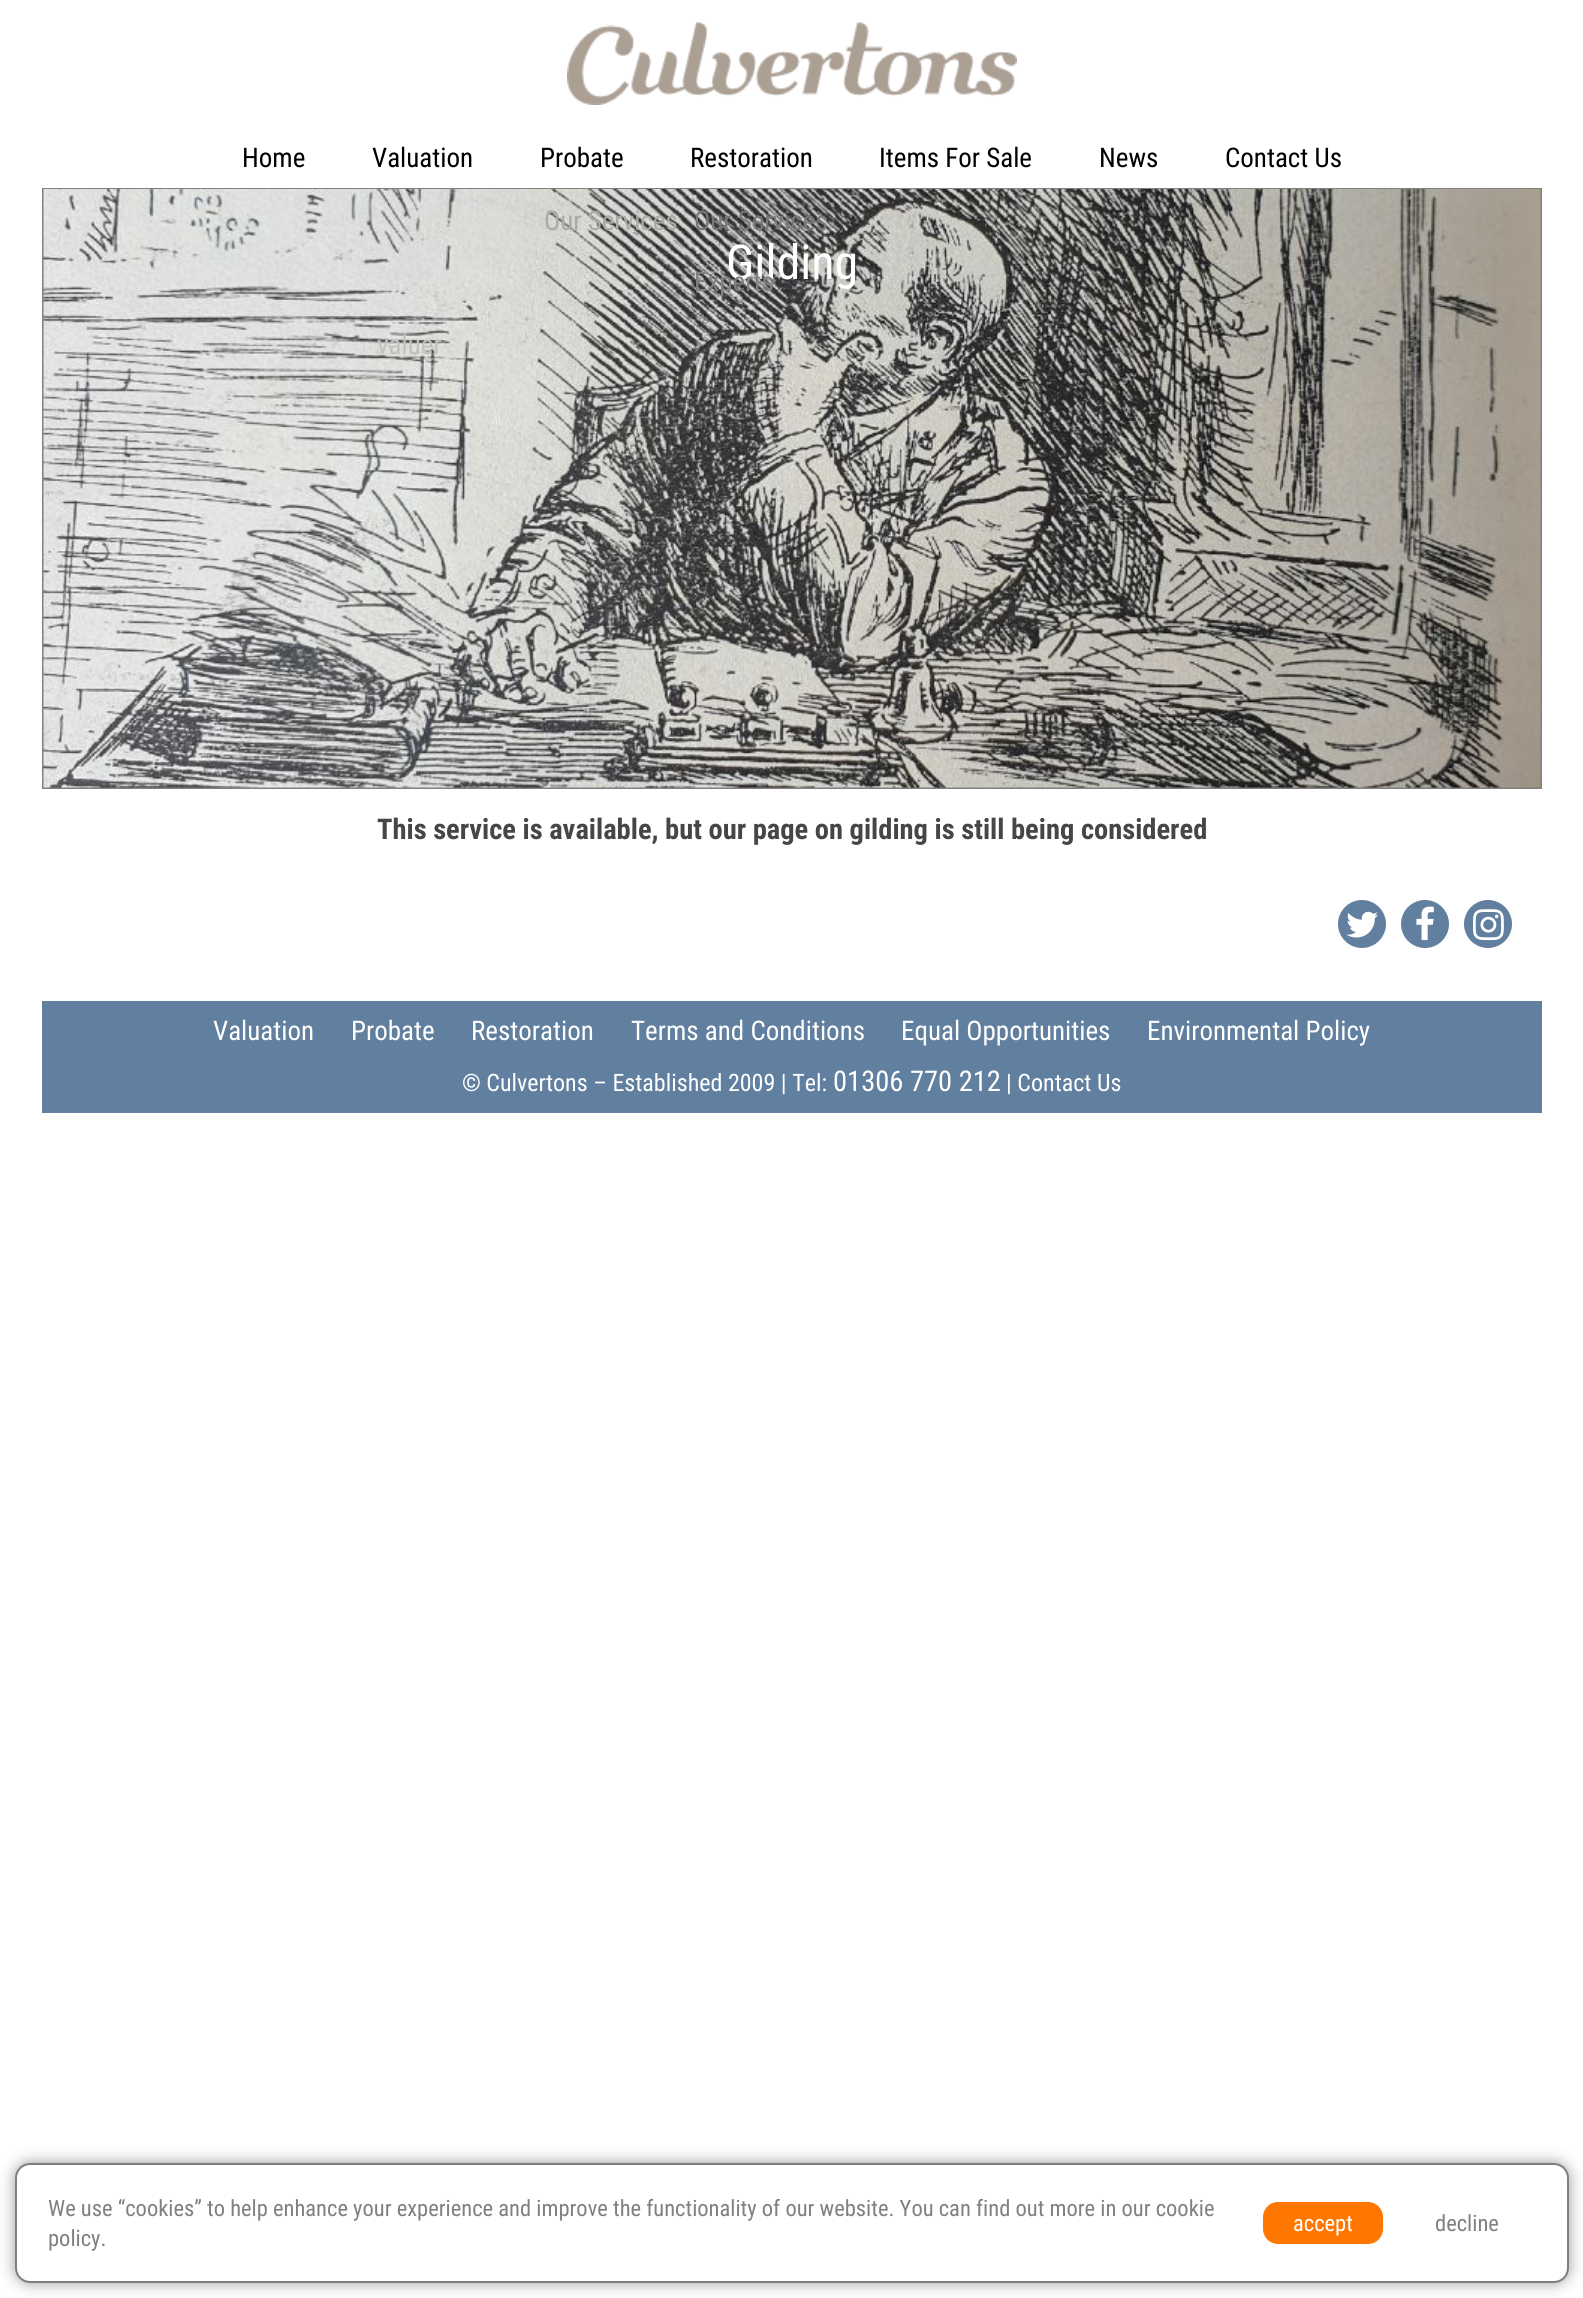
#include <cairo/cairo.h>
#include <math.h>
#include <stddef.h>


static void rounded_rect(cairo_t *cr, double x, double y, double w, double h, double r) {
  cairo_new_sub_path(cr);
  cairo_arc(cr, x + w - r, y + h - r, r, 0, M_PI / 2);
  cairo_arc(cr, x + r, y + h - r, r, M_PI / 2, M_PI);
  cairo_arc(cr, x + r, y + r, r, M_PI, 1.5 * M_PI);
  cairo_arc(cr, x + w - r, y + r, r, 1.5 * M_PI, 2 * M_PI);
  cairo_close_path(cr);
}

static void draw_shadow(cairo_t *cr, double x, double y, double w, double h, double r, double blur, double alpha) {
  cairo_push_group_with_content(cr, CAIRO_CONTENT_ALPHA);
  cairo_set_operator(cr, CAIRO_OPERATOR_SOURCE);
  for (int i = 15; i >= -15 && fmin(w, h) + blur * i / 3 > 0; i -= 2) {
    double e = blur * i / 6;
    cairo_set_source_rgba(cr, 0, 0, 0, alpha * erfc((i - 1) / 8.5) / 2);
    rounded_rect(cr, x - e, y - e, w + 2 * e, h + 2 * e, fmax(0, fmin(r + e + blur * .6, fmin(w, h) / 2 + e)));
    cairo_fill(cr);
  }
  cairo_pattern_t *soft = cairo_pop_group(cr);
  cairo_mask(cr, soft);
  cairo_pattern_destroy(soft);
}

static void draw_image(cairo_t *cr, const char *path, double x, double y, double w, double h) {
  cairo_surface_t *image = cairo_image_surface_create_from_png(path);
  cairo_save(cr);
  cairo_set_source_surface(cr, image, x, y);
  cairo_rectangle(cr, x, y, w, h);
  cairo_fill(cr);
  cairo_restore(cr);
  cairo_surface_destroy(image);
}

static void draw(cairo_t *cr) {
  cairo_set_source_rgb(cr, 1, 1, 1);
  cairo_paint(cr);
  draw_image(cr, "images/1.png", 567, 22, 450, 83);
  cairo_rectangle(cr, 43, 189, 1498, 599);
  cairo_set_source_rgb(cr, 128 / 255.0, 128 / 255.0, 128 / 255.0);
  cairo_stroke(cr);
  draw_image(cr, "images/2.png", 43, 189, 1498, 599);
  cairo_set_source_rgb(cr, 97 / 255.0, 127 / 255.0, 159 / 255.0);
  cairo_arc(cr, 1362, 924, 24, 0, 2 * M_PI);
  cairo_fill(cr);
  draw_image(cr, "images/3.png", 1346, 911, 32, 27);
  cairo_arc(cr, 1425, 924, 24, 0, 2 * M_PI);
  cairo_fill(cr);
  draw_image(cr, "images/4.png", 1416, 906, 18, 35);
  cairo_arc(cr, 1488, 924, 24, 0, 2 * M_PI);
  cairo_fill(cr);
  draw_image(cr, "images/5.png", 1473, 909, 31, 32);
  cairo_rectangle(cr, 42, 1001, 1500, 112);
  cairo_fill(cr);
  cairo_set_source_rgb(cr, 153 / 255.0, 153 / 255.0, 153 / 255.0);
  draw_shadow(cr, 15, 2163, 1554, 120, 15, 7.5, 1);
  cairo_set_source_rgb(cr, 1, 1, 1);
  rounded_rect(cr, 16, 2164, 1552, 118, 14);
  cairo_fill_preserve(cr);
  cairo_set_source_rgb(cr, 127 / 255.0, 127 / 255.0, 127 / 255.0);
  cairo_stroke(cr);
  cairo_set_source_rgb(cr, 1, 119 / 255.0, 0);
  rounded_rect(cr, 1263, 2202, 120, 42, 15);
  cairo_fill(cr);
  cairo_select_font_face(cr, "Roboto Condensed", CAIRO_FONT_SLANT_NORMAL, CAIRO_FONT_WEIGHT_NORMAL);
  cairo_set_font_size(cr, 27);
  cairo_set_source_rgb(cr, 0, 0, 0);
  cairo_move_to(cr, 242, 167);
  cairo_show_text(cr, "Home");
  cairo_move_to(cr, 372, 167);
  cairo_show_text(cr, "Valuation");
  cairo_set_source_rgb(cr, 193 / 255.0, 194 / 255.0, 190 / 255.0);
  cairo_move_to(cr, 377, 354);
  cairo_show_text(cr, "valuer");
  cairo_set_source_rgb(cr, 0, 0, 0);
  cairo_move_to(cr, 540, 167);
  cairo_show_text(cr, "Probate");
  cairo_set_source_rgb(cr, 169 / 255.0, 170 / 255.0, 166 / 255.0);
  cairo_move_to(cr, 544, 230);
  cairo_show_text(cr, "Our Services");
  cairo_set_source_rgb(cr, 0, 0, 0);
  cairo_move_to(cr, 690, 167);
  cairo_show_text(cr, "Restoration");
  cairo_set_source_rgb(cr, 120 / 255.0, 120 / 255.0, 119 / 255.0);
  cairo_move_to(cr, 694, 230);
  cairo_show_text(cr, "Our Services");
  cairo_set_source_rgb(cr, 0, 0, 0);
  cairo_move_to(cr, 879, 167);
  cairo_show_text(cr, "Items For Sale");
  cairo_move_to(cr, 1099, 167);
  cairo_show_text(cr, "News");
  cairo_move_to(cr, 1225, 167);
  cairo_show_text(cr, "Contact Us");
  cairo_set_font_size(cr, 48);
  cairo_set_source_rgb(cr, 1, 1, 1);
  cairo_move_to(cr, 726, 279);
  cairo_show_text(cr, "Gilding");
  cairo_set_font_size(cr, 27);
  cairo_set_source_rgb(cr, 128 / 255.0, 128 / 255.0, 127 / 255.0);
  cairo_move_to(cr, 694, 291);
  cairo_show_text(cr, "Experts");
  cairo_select_font_face(cr, "Roboto Condensed", CAIRO_FONT_SLANT_NORMAL, CAIRO_FONT_WEIGHT_BOLD);
  cairo_set_font_size(cr, 28.5);
  cairo_set_source_rgb(cr, 70 / 255.0, 70 / 255.0, 70 / 255.0);
  cairo_move_to(cr, 377, 839);
  cairo_show_text(cr, "This service is available, but our page on gilding is still being considered");
  cairo_select_font_face(cr, "Roboto Condensed", CAIRO_FONT_SLANT_NORMAL, CAIRO_FONT_WEIGHT_NORMAL);
  cairo_set_font_size(cr, 27);
  cairo_set_source_rgb(cr, 1, 1, 1);
  cairo_move_to(cr, 213, 1040);
  cairo_show_text(cr, "Valuation");
  cairo_move_to(cr, 351, 1040);
  cairo_show_text(cr, "Probate");
  cairo_move_to(cr, 471, 1040);
  cairo_show_text(cr, "Restoration");
  cairo_move_to(cr, 631, 1040);
  cairo_show_text(cr, "Terms and Conditions");
  cairo_move_to(cr, 901, 1040);
  cairo_show_text(cr, "Equal Opportunities");
  cairo_move_to(cr, 1147, 1040);
  cairo_show_text(cr, "Environmental Policy");
  cairo_set_font_size(cr, 24);
  cairo_move_to(cr, 462, 1091);
  cairo_show_text(cr, "© Culvertons – Established 2009 | Tel:");
  cairo_set_font_size(cr, 28.5);
  cairo_move_to(cr, 833, 1091);
  cairo_show_text(cr, "01306 770 212");
  cairo_set_font_size(cr, 24);
  cairo_move_to(cr, 1006, 1091);
  cairo_show_text(cr, "| Contact Us");
  cairo_set_font_size(cr, 22.5);
  cairo_set_source_rgb(cr, 128 / 255.0, 128 / 255.0, 127 / 255.0);
  cairo_move_to(cr, 48, 2216);
  cairo_show_text(cr, "We use “cookies” to help enhance your experience and improve the functionality of our website. You can find out more in our cookie");
  cairo_move_to(cr, 48, 2246);
  cairo_show_text(cr, "policy.");
  cairo_set_source_rgb(cr, 1, 1, 1);
  cairo_move_to(cr, 1293, 2231);
  cairo_show_text(cr, "accept");
  cairo_set_source_rgb(cr, 128 / 255.0, 128 / 255.0, 127 / 255.0);
  cairo_move_to(cr, 1435, 2231);
  cairo_show_text(cr, "decline");
}

int main(void) {
  cairo_surface_t *surface = cairo_image_surface_create(CAIRO_FORMAT_RGB24, 1583, 2298);
  cairo_t *cr = cairo_create(surface);
  cairo_font_options_t *options = cairo_font_options_create();
  cairo_font_options_set_hint_metrics(options, CAIRO_HINT_METRICS_OFF);
  cairo_font_options_set_hint_style(options, CAIRO_HINT_STYLE_NONE);
  cairo_set_font_options(cr, options);
  cairo_set_miter_limit(cr, 4);
  draw(cr);
  cairo_surface_write_to_png(surface, "out.png");
  cairo_font_options_destroy(options);
  cairo_destroy(cr);
  cairo_surface_destroy(surface);
  return 0;
}
